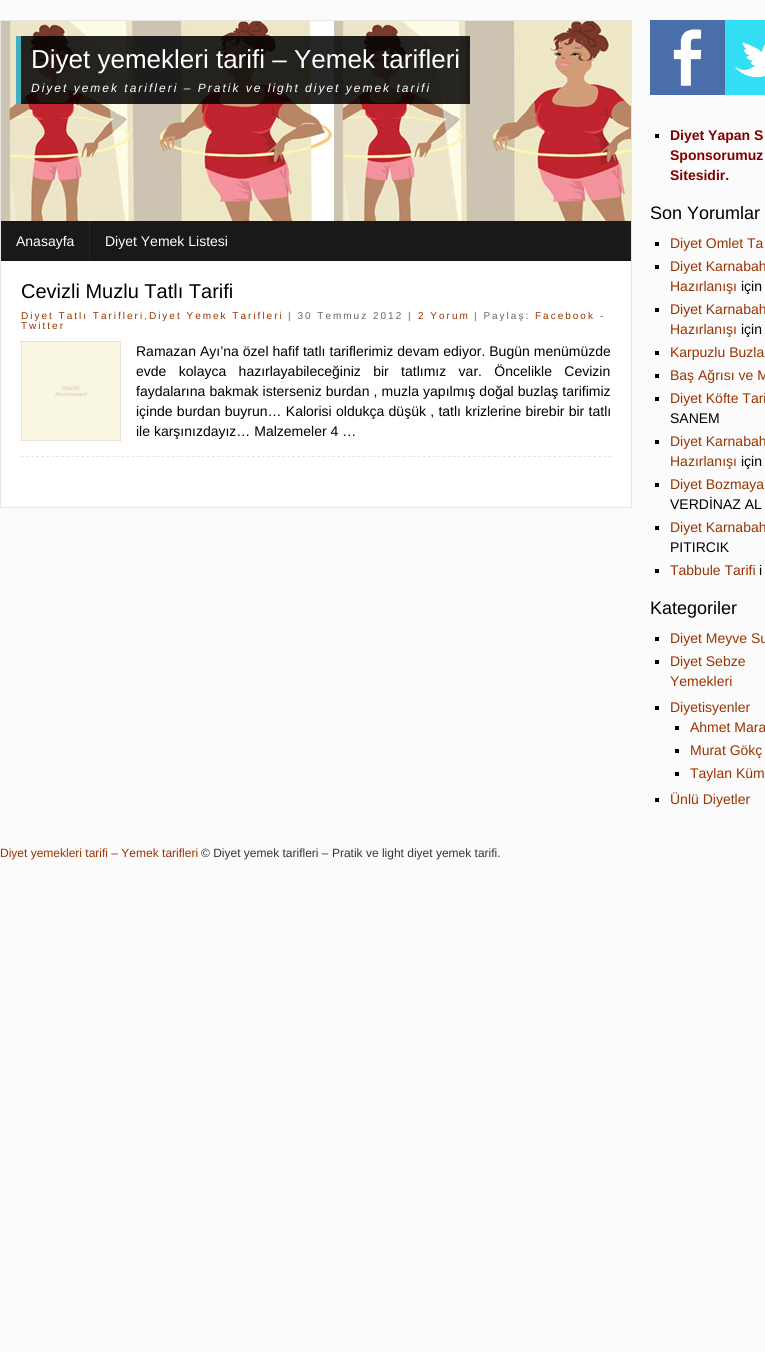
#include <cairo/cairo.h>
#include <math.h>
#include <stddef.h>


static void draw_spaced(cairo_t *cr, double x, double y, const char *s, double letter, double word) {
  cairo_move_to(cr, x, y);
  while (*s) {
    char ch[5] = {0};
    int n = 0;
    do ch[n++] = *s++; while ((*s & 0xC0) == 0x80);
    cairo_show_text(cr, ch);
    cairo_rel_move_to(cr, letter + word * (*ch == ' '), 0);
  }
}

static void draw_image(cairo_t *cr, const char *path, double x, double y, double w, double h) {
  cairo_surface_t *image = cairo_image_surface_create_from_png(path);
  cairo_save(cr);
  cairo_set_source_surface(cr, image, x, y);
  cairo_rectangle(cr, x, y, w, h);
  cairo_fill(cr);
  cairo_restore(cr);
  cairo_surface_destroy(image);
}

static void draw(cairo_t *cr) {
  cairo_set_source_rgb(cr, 251 / 255.0, 251 / 255.0, 251 / 255.0);
  cairo_paint(cr);
  cairo_set_source_rgb(cr, 1, 1, 1);
  cairo_rectangle(cr, 1, 261, 630, 246);
  cairo_fill(cr);
  cairo_rectangle(cr, 0.5, 20.5, 631, 487);
  cairo_set_source_rgb(cr, 230 / 255.0, 230 / 255.0, 230 / 255.0);
  cairo_set_line_width(cr, 1);
  cairo_stroke(cr);
  draw_image(cr, "images/1.png", 1, 21, 630, 200);
  cairo_set_source_rgba(cr, 0, 0, 0, 0.85);
  cairo_rectangle(cr, 21, 36, 449, 68);
  cairo_fill(cr);
  cairo_set_source_rgb(cr, 68 / 255.0, 175 / 255.0, 194 / 255.0);
  cairo_rectangle(cr, 16, 36, 5, 68);
  cairo_fill(cr);
  cairo_set_source_rgb(cr, 25 / 255.0, 25 / 255.0, 25 / 255.0);
  cairo_rectangle(cr, 1, 221, 630, 40);
  cairo_fill(cr);
  cairo_new_path(cr);
  cairo_move_to(cr, 89.5, 221);
  cairo_line_to(cr, 89.5, 261);
  cairo_set_source_rgb(cr, 50 / 255.0, 50 / 255.0, 50 / 255.0);
  cairo_set_dash(cr, (double[]){1, 1}, 2, 0);
  cairo_stroke(cr);
  cairo_new_path(cr);
  cairo_move_to(cr, 21, 456.5);
  cairo_line_to(cr, 611, 456.5);
  cairo_set_source_rgb(cr, 230 / 255.0, 230 / 255.0, 230 / 255.0);
  cairo_set_dash(cr, (double[]){3, 2.02}, 2, 0);
  cairo_stroke(cr);
  draw_image(cr, "images/2.png", 21, 341, 100, 100);
  draw_image(cr, "images/3.png", 650, 20, 75, 75);
  draw_image(cr, "images/4.png", 725, 20, 40, 75);
  cairo_set_source_rgb(cr, 0, 0, 0);
  cairo_rectangle(cr, 655, 134, 4, 4);
  cairo_fill(cr);
  cairo_rectangle(cr, 655, 242, 4, 4);
  cairo_fill(cr);
  cairo_rectangle(cr, 655, 265, 4, 4);
  cairo_fill(cr);
  cairo_rectangle(cr, 655, 308, 4, 4);
  cairo_fill(cr);
  cairo_rectangle(cr, 655, 351, 4, 4);
  cairo_fill(cr);
  cairo_rectangle(cr, 655, 374, 4, 4);
  cairo_fill(cr);
  cairo_rectangle(cr, 655, 397, 4, 4);
  cairo_fill(cr);
  cairo_rectangle(cr, 655, 440, 4, 4);
  cairo_fill(cr);
  cairo_rectangle(cr, 655, 483, 4, 4);
  cairo_fill(cr);
  cairo_rectangle(cr, 655, 526, 4, 4);
  cairo_fill(cr);
  cairo_rectangle(cr, 655, 569, 4, 4);
  cairo_fill(cr);
  cairo_rectangle(cr, 655, 637, 4, 4);
  cairo_fill(cr);
  cairo_rectangle(cr, 655, 660, 4, 4);
  cairo_fill(cr);
  cairo_rectangle(cr, 655, 706, 4, 4);
  cairo_fill(cr);
  cairo_rectangle(cr, 675, 726, 4, 4);
  cairo_fill(cr);
  cairo_rectangle(cr, 675, 749, 4, 4);
  cairo_fill(cr);
  cairo_rectangle(cr, 675, 772, 4, 4);
  cairo_fill(cr);
  cairo_rectangle(cr, 655, 798, 4, 4);
  cairo_fill(cr);
  cairo_select_font_face(cr, "Liberation Sans", CAIRO_FONT_SLANT_NORMAL, CAIRO_FONT_WEIGHT_NORMAL);
  cairo_set_font_size(cr, 26);
  cairo_set_source_rgb(cr, 1, 1, 1);
  cairo_move_to(cr, 31, 68);
  cairo_show_text(cr, "Diyet yemekleri tarifi – Yemek tarifleri");
  cairo_select_font_face(cr, "Liberation Sans", CAIRO_FONT_SLANT_ITALIC, CAIRO_FONT_WEIGHT_NORMAL);
  cairo_set_font_size(cr, 12);
  draw_spaced(cr, 31, 92, "Diyet yemek tarifleri – Pratik ve light diyet yemek tarifi", 2, 0);
  cairo_select_font_face(cr, "Liberation Sans", CAIRO_FONT_SLANT_NORMAL, CAIRO_FONT_WEIGHT_NORMAL);
  cairo_set_font_size(cr, 14);
  cairo_move_to(cr, 16, 246);
  cairo_show_text(cr, "Anasayfa");
  cairo_move_to(cr, 105, 246);
  cairo_show_text(cr, "Diyet Yemek Listesi");
  cairo_set_font_size(cr, 20);
  cairo_set_source_rgb(cr, 0, 0, 0);
  cairo_move_to(cr, 21, 298);
  cairo_show_text(cr, "Cevizli Muzlu Tatlı Tarifi");
  cairo_set_font_size(cr, 10);
  cairo_set_source_rgb(cr, 153 / 255.0, 51 / 255.0, 0);
  draw_spaced(cr, 21, 319, "Diyet Tatlı Tarifleri Diyet Yemek Tarifleri", 2, 0);
  cairo_set_source_rgb(cr, 102 / 255.0, 102 / 255.0, 102 / 255.0);
  draw_spaced(cr, 288, 319, "| 30 Temmuz 2012 |", 2, 0);
  cairo_set_source_rgb(cr, 153 / 255.0, 51 / 255.0, 0);
  draw_spaced(cr, 418, 319, "2 Yorum", 2, 0);
  cairo_set_source_rgb(cr, 102 / 255.0, 102 / 255.0, 102 / 255.0);
  draw_spaced(cr, 474, 319, "| Paylaş:", 2, 0);
  cairo_set_source_rgb(cr, 153 / 255.0, 51 / 255.0, 0);
  draw_spaced(cr, 535, 319, "Facebook", 2, 0);
  cairo_set_source_rgb(cr, 102 / 255.0, 102 / 255.0, 102 / 255.0);
  draw_spaced(cr, 600, 319, "-", 2, 0);
  draw_spaced(cr, 144, 319, ",", 2, 0);
  cairo_set_source_rgb(cr, 153 / 255.0, 51 / 255.0, 0);
  draw_spaced(cr, 21, 329, "Twitter", 2, 0);
  cairo_set_font_size(cr, 14);
  cairo_set_source_rgb(cr, 0, 0, 0);
  draw_spaced(cr, 136, 356, "Ramazan Ayı’na özel hafif tatlı tariflerimiz devam ediyor. Bugün menümüzde", 0, 0.1);
  draw_spaced(cr, 136, 376, "evde kolayca hazırlayabileceğiniz bir tatlımız var. Öncelikle Cevizin", 0, 8.5);
  draw_spaced(cr, 136, 396, "faydalarına bakmak isterseniz burdan , muzla yapılmış doğal buzlaş tarifimiz", 0, 0.25);
  draw_spaced(cr, 136, 416, "içinde burdan buyrun… Kalorisi oldukça düşük , tatlı krizlerine birebir bir tatlı", 0, 0.4);
  cairo_move_to(cr, 136, 436);
  cairo_show_text(cr, "ile karşınızdayız… Malzemeler 4 …");
  cairo_select_font_face(cr, "Liberation Sans", CAIRO_FONT_SLANT_NORMAL, CAIRO_FONT_WEIGHT_BOLD);
  cairo_set_source_rgb(cr, 128 / 255.0, 0, 0);
  cairo_move_to(cr, 670, 140);
  cairo_show_text(cr, "Diyet Yapan S");
  cairo_move_to(cr, 670, 160);
  cairo_show_text(cr, "Sponsorumuz");
  cairo_move_to(cr, 670, 180);
  cairo_show_text(cr, "Sitesidir.");
  cairo_select_font_face(cr, "Liberation Sans", CAIRO_FONT_SLANT_NORMAL, CAIRO_FONT_WEIGHT_NORMAL);
  cairo_set_font_size(cr, 18);
  cairo_set_source_rgb(cr, 0, 0, 0);
  cairo_move_to(cr, 650, 219);
  cairo_show_text(cr, "Son Yorumlar");
  cairo_set_font_size(cr, 14);
  cairo_set_source_rgb(cr, 153 / 255.0, 51 / 255.0, 0);
  cairo_move_to(cr, 670, 248);
  cairo_show_text(cr, "Diyet Omlet Ta");
  cairo_move_to(cr, 670, 271);
  cairo_show_text(cr, "Diyet Karnabah");
  cairo_move_to(cr, 670, 291);
  cairo_show_text(cr, "Hazırlanışı");
  cairo_set_source_rgb(cr, 0, 0, 0);
  cairo_move_to(cr, 741, 291);
  cairo_show_text(cr, "için");
  cairo_set_source_rgb(cr, 153 / 255.0, 51 / 255.0, 0);
  cairo_move_to(cr, 670, 314);
  cairo_show_text(cr, "Diyet Karnabah");
  cairo_move_to(cr, 670, 334);
  cairo_show_text(cr, "Hazırlanışı");
  cairo_set_source_rgb(cr, 0, 0, 0);
  cairo_move_to(cr, 741, 334);
  cairo_show_text(cr, "için");
  cairo_set_source_rgb(cr, 153 / 255.0, 51 / 255.0, 0);
  cairo_move_to(cr, 670, 357);
  cairo_show_text(cr, "Karpuzlu Buzla");
  cairo_move_to(cr, 670, 380);
  cairo_show_text(cr, "Baş Ağrısı ve M");
  cairo_move_to(cr, 670, 403);
  cairo_show_text(cr, "Diyet Köfte Tari");
  cairo_set_source_rgb(cr, 0, 0, 0);
  cairo_move_to(cr, 670, 423);
  cairo_show_text(cr, "SANEM");
  cairo_set_source_rgb(cr, 153 / 255.0, 51 / 255.0, 0);
  cairo_move_to(cr, 670, 446);
  cairo_show_text(cr, "Diyet Karnabah");
  cairo_move_to(cr, 670, 466);
  cairo_show_text(cr, "Hazırlanışı");
  cairo_set_source_rgb(cr, 0, 0, 0);
  cairo_move_to(cr, 741, 466);
  cairo_show_text(cr, "için");
  cairo_set_source_rgb(cr, 153 / 255.0, 51 / 255.0, 0);
  cairo_move_to(cr, 670, 489);
  cairo_show_text(cr, "Diyet Bozmaya");
  cairo_set_source_rgb(cr, 0, 0, 0);
  cairo_move_to(cr, 670, 509);
  cairo_show_text(cr, "VERDİNAZ AL");
  cairo_set_source_rgb(cr, 153 / 255.0, 51 / 255.0, 0);
  cairo_move_to(cr, 670, 532);
  cairo_show_text(cr, "Diyet Karnabah");
  cairo_set_source_rgb(cr, 0, 0, 0);
  cairo_move_to(cr, 670, 552);
  cairo_show_text(cr, "PITIRCIK");
  cairo_set_source_rgb(cr, 153 / 255.0, 51 / 255.0, 0);
  cairo_move_to(cr, 670, 575);
  cairo_show_text(cr, "Tabbule Tarifi");
  cairo_set_source_rgb(cr, 0, 0, 0);
  cairo_move_to(cr, 759, 575);
  cairo_show_text(cr, "i");
  cairo_set_font_size(cr, 18);
  cairo_move_to(cr, 650, 614);
  cairo_show_text(cr, "Kategoriler");
  cairo_set_font_size(cr, 14);
  cairo_set_source_rgb(cr, 153 / 255.0, 51 / 255.0, 0);
  cairo_move_to(cr, 670, 643);
  cairo_show_text(cr, "Diyet Meyve Su");
  cairo_move_to(cr, 670, 666);
  cairo_show_text(cr, "Diyet Sebze");
  cairo_move_to(cr, 670, 686);
  cairo_show_text(cr, "Yemekleri");
  cairo_move_to(cr, 670, 712);
  cairo_show_text(cr, "Diyetisyenler");
  cairo_move_to(cr, 690, 732);
  cairo_show_text(cr, "Ahmet Mara");
  cairo_move_to(cr, 690, 755);
  cairo_show_text(cr, "Murat Gökç");
  cairo_move_to(cr, 690, 778);
  cairo_show_text(cr, "Taylan Küm");
  cairo_move_to(cr, 670, 804);
  cairo_show_text(cr, "Ünlü Diyetler");
  cairo_set_font_size(cr, 12);
  cairo_move_to(cr, 0, 857);
  cairo_show_text(cr, "Diyet yemekleri tarifi – Yemek tarifleri");
  cairo_set_source_rgb(cr, 51 / 255.0, 51 / 255.0, 51 / 255.0);
  cairo_move_to(cr, 201, 857);
  cairo_show_text(cr, "© Diyet yemek tarifleri – Pratik ve light diyet yemek tarifi.");
}

int main(void) {
  cairo_surface_t *surface = cairo_image_surface_create(CAIRO_FORMAT_RGB24, 765, 1352);
  cairo_t *cr = cairo_create(surface);
  cairo_font_options_t *options = cairo_font_options_create();
  cairo_font_options_set_hint_metrics(options, CAIRO_HINT_METRICS_OFF);
  cairo_font_options_set_hint_style(options, CAIRO_HINT_STYLE_NONE);
  cairo_set_font_options(cr, options);
  cairo_set_miter_limit(cr, 4);
  draw(cr);
  cairo_surface_write_to_png(surface, "out.png");
  cairo_font_options_destroy(options);
  cairo_destroy(cr);
  cairo_surface_destroy(surface);
  return 0;
}
